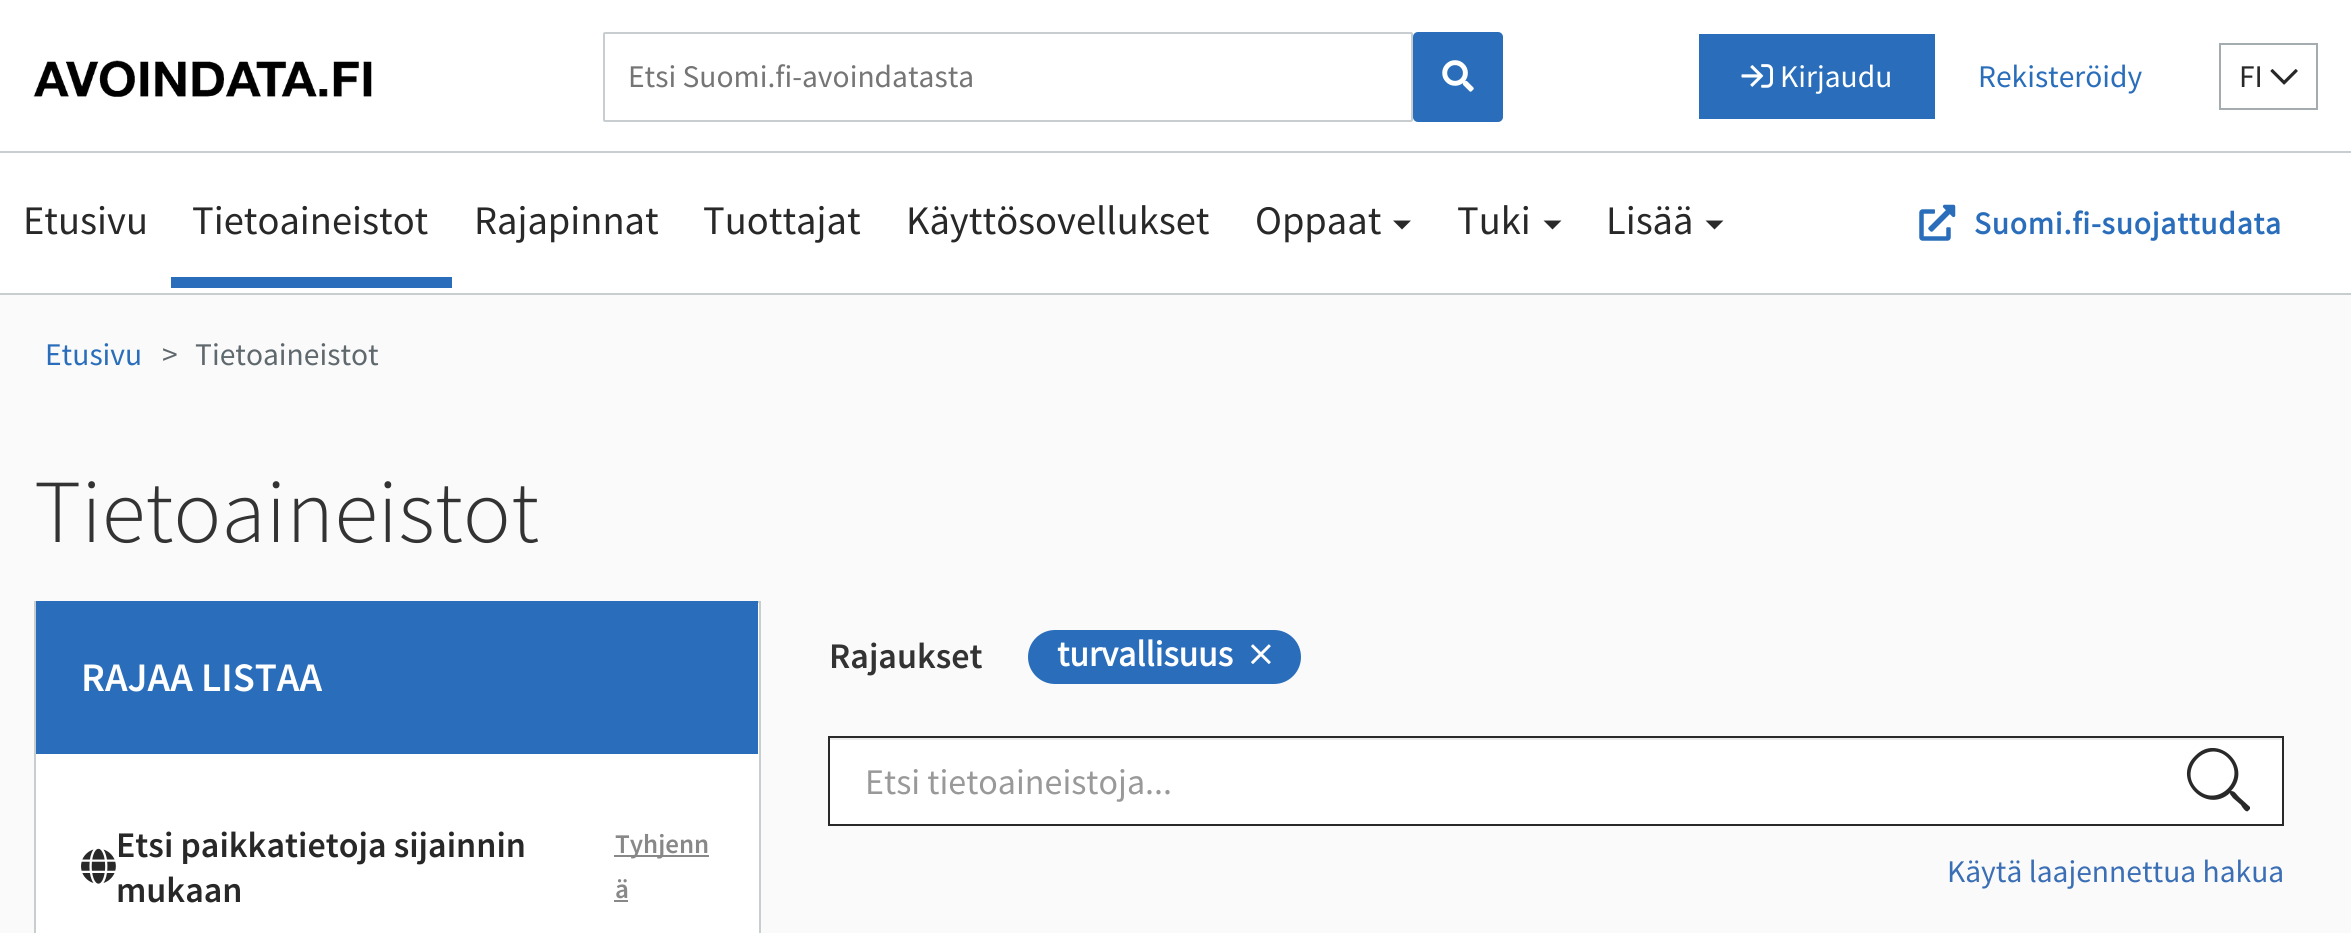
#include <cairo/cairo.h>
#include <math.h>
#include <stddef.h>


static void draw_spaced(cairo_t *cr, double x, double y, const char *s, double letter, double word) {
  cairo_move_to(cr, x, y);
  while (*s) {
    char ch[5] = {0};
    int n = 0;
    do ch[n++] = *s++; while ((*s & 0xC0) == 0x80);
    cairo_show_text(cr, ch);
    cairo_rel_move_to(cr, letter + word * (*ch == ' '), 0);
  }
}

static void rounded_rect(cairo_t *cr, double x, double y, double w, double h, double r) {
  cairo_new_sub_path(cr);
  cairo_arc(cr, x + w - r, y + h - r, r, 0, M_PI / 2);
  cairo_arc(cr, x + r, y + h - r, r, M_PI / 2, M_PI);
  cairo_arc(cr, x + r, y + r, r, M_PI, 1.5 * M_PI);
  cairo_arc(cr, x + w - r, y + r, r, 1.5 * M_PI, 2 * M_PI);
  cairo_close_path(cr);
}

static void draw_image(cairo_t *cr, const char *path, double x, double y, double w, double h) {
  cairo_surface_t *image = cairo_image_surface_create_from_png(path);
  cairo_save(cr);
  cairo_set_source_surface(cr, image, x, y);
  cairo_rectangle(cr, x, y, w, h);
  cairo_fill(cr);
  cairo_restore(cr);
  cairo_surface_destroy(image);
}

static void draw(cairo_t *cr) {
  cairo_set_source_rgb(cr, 250 / 255.0, 250 / 255.0, 250 / 255.0);
  cairo_paint(cr);
  cairo_set_source_rgb(cr, 1, 1, 1);
  cairo_rectangle(cr, 0, 0, 2351, 151);
  cairo_fill(cr);
  draw_image(cr, "images/1.png", 33, 60, 339, 37);
  rounded_rect(cr, 604, 33, 808, 88, 1);
  cairo_set_source_rgb(cr, 200 / 255.0, 205 / 255.0, 208 / 255.0);
  cairo_stroke(cr);
  cairo_set_source_rgb(cr, 42 / 255.0, 110 / 255.0, 187 / 255.0);
  rounded_rect(cr, 1413, 32, 90, 90, 5);
  cairo_fill(cr);
  draw_image(cr, "images/2.png", 1442, 60, 32, 32);
  cairo_rectangle(cr, 1699, 34, 236, 85);
  cairo_fill(cr);
  draw_image(cr, "images/3.png", 1741, 64, 32, 24);
  cairo_rectangle(cr, 2220, 44, 97, 65);
  cairo_set_source_rgb(cr, 165 / 255.0, 172 / 255.0, 176 / 255.0);
  cairo_stroke(cr);
  draw_image(cr, "images/4.png", 2270, 69, 28, 16);
  cairo_set_source_rgb(cr, 1, 1, 1);
  cairo_rectangle(cr, 0, 153, 2351, 140);
  cairo_fill(cr);
  cairo_set_source_rgb(cr, 200 / 255.0, 205 / 255.0, 208 / 255.0);
  cairo_rectangle(cr, 0, 151, 2351, 2);
  cairo_fill(cr);
  cairo_rectangle(cr, 0, 293, 2351, 2);
  cairo_fill(cr);
  cairo_set_source_rgb(cr, 42 / 255.0, 110 / 255.0, 187 / 255.0);
  cairo_rectangle(cr, 171, 277, 281, 11);
  cairo_fill(cr);
  cairo_set_source_rgb(cr, 41 / 255.0, 41 / 255.0, 41 / 255.0);
  cairo_new_path(cr);
  cairo_move_to(cr, 1393, 220.5);
  cairo_line_to(cr, 1411, 220.5);
  cairo_line_to(cr, 1402, 229.5);
  cairo_close_path(cr);
  cairo_fill(cr);
  cairo_new_path(cr);
  cairo_move_to(cr, 1543.5, 220.5);
  cairo_line_to(cr, 1561.5, 220.5);
  cairo_line_to(cr, 1552.5, 229.5);
  cairo_close_path(cr);
  cairo_fill(cr);
  cairo_new_path(cr);
  cairo_move_to(cr, 1705.5, 220.5);
  cairo_line_to(cr, 1723.5, 220.5);
  cairo_line_to(cr, 1714.5, 229.5);
  cairo_close_path(cr);
  cairo_fill(cr);
  draw_image(cr, "images/5.png", 1919, 204, 37, 37);
  cairo_set_source_rgb(cr, 1, 1, 1);
  cairo_rectangle(cr, 35, 602, 725, 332);
  cairo_fill_preserve(cr);
  cairo_set_source_rgb(cr, 200 / 255.0, 205 / 255.0, 208 / 255.0);
  cairo_stroke(cr);
  cairo_set_source_rgb(cr, 42 / 255.0, 110 / 255.0, 187 / 255.0);
  cairo_rectangle(cr, 36, 601, 722, 153);
  cairo_fill(cr);
  draw_image(cr, "images/6.png", 81, 848, 35, 36);
  cairo_set_source_rgb(cr, 136 / 255.0, 136 / 255.0, 136 / 255.0);
  cairo_rectangle(cr, 614, 855, 95, 2);
  cairo_fill(cr);
  cairo_rectangle(cr, 614, 900, 14, 2);
  cairo_fill(cr);
  cairo_set_source_rgb(cr, 42 / 255.0, 110 / 255.0, 187 / 255.0);
  rounded_rect(cr, 1028, 630, 273, 54, 27);
  cairo_fill(cr);
  draw_image(cr, "images/7.png", 1251, 644, 20, 20);
  cairo_set_source_rgb(cr, 1, 1, 1);
  cairo_rectangle(cr, 830, 740, 1452, 84);
  cairo_fill(cr);
  cairo_set_source_rgb(cr, 236 / 255.0, 236 / 255.0, 236 / 255.0);
  cairo_rectangle(cr, 830, 738, 1452, 2);
  cairo_fill(cr);
  cairo_rectangle(cr, 829, 737, 1454, 88);
  cairo_set_source_rgb(cr, 41 / 255.0, 41 / 255.0, 41 / 255.0);
  cairo_stroke(cr);
  cairo_new_path(cr);
  cairo_move_to(cr, 2250, 807);
  cairo_line_to(cr, 2250, 809);
  cairo_line_to(cr, 2248, 811);
  cairo_curve_to(cr, 2246, 813, 2242, 807, 2241, 805);
  cairo_line_to(cr, 2233, 798);
  cairo_curve_to(cr, 2231, 795, 2230, 795, 2230, 793);
  cairo_curve_to(cr, 2206, 815, 2171, 779, 2195, 756);
  cairo_curve_to(cr, 2218, 732, 2254, 767, 2231, 791);
  cairo_curve_to(cr, 2235, 791, 2236, 794, 2239, 797);
  cairo_close_path(cr);
  cairo_move_to(cr, 2197, 789);
  cairo_curve_to(cr, 2217, 809, 2248, 779, 2228, 758);
  cairo_curve_to(cr, 2208, 738, 2177, 769, 2197, 789);
  cairo_close_path(cr);
  cairo_fill(cr);
  cairo_select_font_face(cr, "Source Sans Pro", CAIRO_FONT_SLANT_NORMAL, CAIRO_FONT_WEIGHT_NORMAL);
  cairo_set_font_size(cr, 31.5);
  cairo_set_source_rgb(cr, 117 / 255.0, 117 / 255.0, 117 / 255.0);
  cairo_move_to(cr, 628, 87);
  cairo_show_text(cr, "Etsi Suomi.fi-avoindatasta");
  cairo_set_source_rgb(cr, 1, 1, 1);
  cairo_move_to(cr, 1780, 87);
  cairo_show_text(cr, "Kirjaudu");
  cairo_set_source_rgb(cr, 42 / 255.0, 110 / 255.0, 187 / 255.0);
  cairo_move_to(cr, 1978, 87);
  cairo_show_text(cr, "Rekisteröidy");
  cairo_set_source_rgb(cr, 40 / 255.0, 40 / 255.0, 40 / 255.0);
  cairo_move_to(cr, 2239, 87);
  cairo_show_text(cr, "FI");
  cairo_set_font_size(cr, 40.5);
  cairo_move_to(cr, 23, 234);
  cairo_show_text(cr, "Etusivu");
  cairo_move_to(cr, 192, 234);
  cairo_show_text(cr, "Tietoaineistot");
  cairo_move_to(cr, 474, 234);
  cairo_show_text(cr, "Rajapinnat");
  cairo_move_to(cr, 703, 234);
  cairo_show_text(cr, "Tuottajat");
  cairo_move_to(cr, 906, 234);
  cairo_show_text(cr, "Käyttösovellukset");
  cairo_move_to(cr, 1255, 234);
  cairo_show_text(cr, "Oppaat");
  cairo_move_to(cr, 1457, 234);
  cairo_show_text(cr, "Tuki");
  cairo_move_to(cr, 1606, 234);
  cairo_show_text(cr, "Lisää");
  cairo_select_font_face(cr, "Source Sans Pro", CAIRO_FONT_SLANT_NORMAL, CAIRO_FONT_WEIGHT_BOLD);
  cairo_set_font_size(cr, 31.5);
  cairo_set_source_rgb(cr, 42 / 255.0, 110 / 255.0, 187 / 255.0);
  draw_spaced(cr, 1974, 234, "Suomi.fi-suojattudata", 0.9, 0);
  cairo_select_font_face(cr, "Source Sans Pro", CAIRO_FONT_SLANT_NORMAL, CAIRO_FONT_WEIGHT_NORMAL);
  cairo_move_to(cr, 45, 365);
  cairo_show_text(cr, "Etusivu");
  cairo_set_source_rgb(cr, 95 / 255.0, 104 / 255.0, 109 / 255.0);
  cairo_move_to(cr, 162, 365);
  cairo_show_text(cr, ">");
  cairo_move_to(cr, 195, 365);
  cairo_show_text(cr, "Tietoaineistot");
  cairo_select_font_face(cr, "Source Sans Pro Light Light", CAIRO_FONT_SLANT_NORMAL, CAIRO_FONT_WEIGHT_NORMAL);
  cairo_set_font_size(cr, 90);
  cairo_set_source_rgb(cr, 51 / 255.0, 51 / 255.0, 51 / 255.0);
  cairo_move_to(cr, 34, 542);
  cairo_show_text(cr, "Tietoaineistot");
  cairo_select_font_face(cr, "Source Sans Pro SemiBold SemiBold", CAIRO_FONT_SLANT_NORMAL, CAIRO_FONT_WEIGHT_NORMAL);
  cairo_set_font_size(cr, 40.5);
  cairo_set_source_rgb(cr, 1, 1, 1);
  cairo_move_to(cr, 81, 691);
  cairo_show_text(cr, "RAJAA LISTAA");
  cairo_set_font_size(cr, 36);
  cairo_set_source_rgb(cr, 40 / 255.0, 40 / 255.0, 40 / 255.0);
  cairo_move_to(cr, 116, 857);
  cairo_show_text(cr, "Etsi paikkatietoja sijainnin");
  cairo_set_font_size(cr, 27);
  cairo_set_source_rgb(cr, 136 / 255.0, 136 / 255.0, 136 / 255.0);
  cairo_move_to(cr, 615, 853);
  cairo_show_text(cr, "Tyhjenn");
  cairo_move_to(cr, 615, 898);
  cairo_show_text(cr, "ä");
  cairo_set_font_size(cr, 36);
  cairo_set_source_rgb(cr, 40 / 255.0, 40 / 255.0, 40 / 255.0);
  cairo_move_to(cr, 116, 902);
  cairo_show_text(cr, "mukaan");
  cairo_set_source_rgb(cr, 51 / 255.0, 51 / 255.0, 51 / 255.0);
  cairo_move_to(cr, 829, 668);
  cairo_show_text(cr, "Rajaukset");
  cairo_select_font_face(cr, "Source Sans Pro", CAIRO_FONT_SLANT_NORMAL, CAIRO_FONT_WEIGHT_BOLD);
  cairo_set_source_rgb(cr, 1, 1, 1);
  cairo_move_to(cr, 1057, 666);
  cairo_show_text(cr, "turvallisuus");
  cairo_select_font_face(cr, "Source Sans Pro", CAIRO_FONT_SLANT_NORMAL, CAIRO_FONT_WEIGHT_NORMAL);
  cairo_set_source_rgb(cr, 153 / 255.0, 153 / 255.0, 153 / 255.0);
  cairo_move_to(cr, 865, 794);
  cairo_show_text(cr, "Etsi tietoaineistoja...");
  cairo_set_font_size(cr, 31.5);
  cairo_set_source_rgb(cr, 58 / 255.0, 110 / 255.0, 181 / 255.0);
  cairo_move_to(cr, 1947, 882);
  cairo_show_text(cr, "Käytä laajennettua hakua");
}

int main(void) {
  cairo_surface_t *surface = cairo_image_surface_create(CAIRO_FORMAT_RGB24, 2351, 933);
  cairo_t *cr = cairo_create(surface);
  cairo_font_options_t *options = cairo_font_options_create();
  cairo_font_options_set_hint_metrics(options, CAIRO_HINT_METRICS_OFF);
  cairo_font_options_set_hint_style(options, CAIRO_HINT_STYLE_NONE);
  cairo_set_font_options(cr, options);
  cairo_set_miter_limit(cr, 4);
  draw(cr);
  cairo_surface_write_to_png(surface, "out.png");
  cairo_font_options_destroy(options);
  cairo_destroy(cr);
  cairo_surface_destroy(surface);
  return 0;
}
